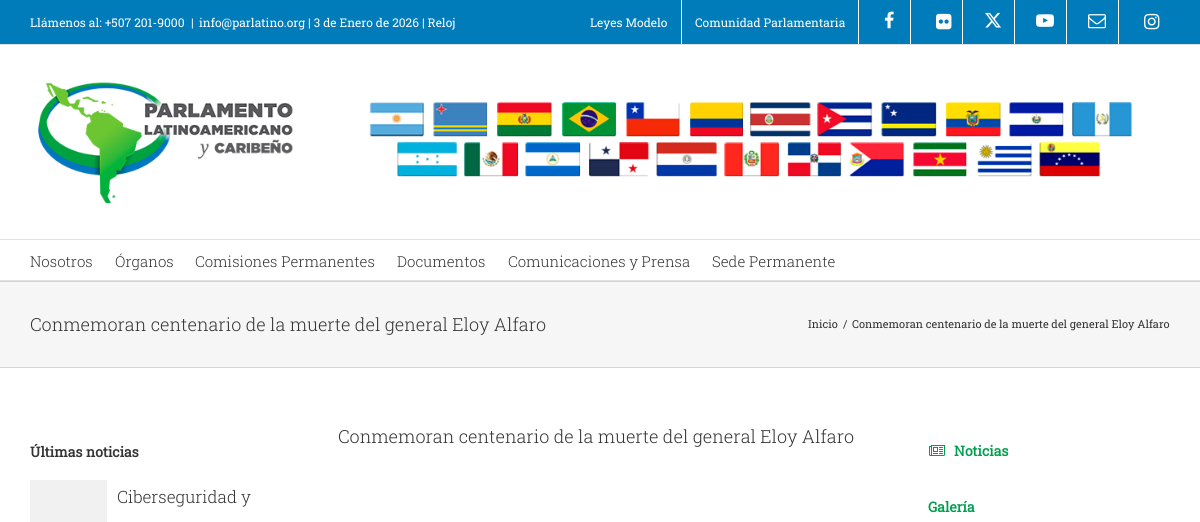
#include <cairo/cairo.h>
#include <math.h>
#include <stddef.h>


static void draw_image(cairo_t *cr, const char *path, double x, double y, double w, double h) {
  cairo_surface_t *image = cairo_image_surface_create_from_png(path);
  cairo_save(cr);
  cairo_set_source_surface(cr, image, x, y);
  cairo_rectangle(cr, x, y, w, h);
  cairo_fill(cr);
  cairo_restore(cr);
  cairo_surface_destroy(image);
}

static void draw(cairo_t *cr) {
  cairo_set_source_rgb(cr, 1, 1, 1);
  cairo_paint(cr);
  cairo_set_source_rgb(cr, 0, 124 / 255.0, 186 / 255.0);
  cairo_rectangle(cr, 0, 0, 1200, 44);
  cairo_fill(cr);
  cairo_set_source_rgb(cr, 225 / 255.0, 225 / 255.0, 225 / 255.0);
  cairo_rectangle(cr, 0, 44, 1200, 1);
  cairo_fill(cr);
  cairo_set_source_rgb(cr, 1, 1, 1);
  cairo_rectangle(cr, 681, 0, 1, 44);
  cairo_fill(cr);
  cairo_rectangle(cr, 858, 0, 1, 44);
  cairo_fill(cr);
  draw_image(cr, "images/1.png", 884, 11, 10, 18);
  cairo_rectangle(cr, 910, 0, 1, 44);
  cairo_fill(cr);
  draw_image(cr, "images/2.png", 936, 13, 16, 17);
  cairo_rectangle(cr, 962, 0, 1, 44);
  cairo_fill(cr);
  draw_image(cr, "images/3.png", 985, 12, 16, 16);
  cairo_rectangle(cr, 1014, 0, 1, 44);
  cairo_fill(cr);
  draw_image(cr, "images/4.png", 1036, 14, 18, 13);
  cairo_rectangle(cr, 1066, 0, 1, 44);
  cairo_fill(cr);
  draw_image(cr, "images/5.png", 1088, 14, 18, 15);
  cairo_rectangle(cr, 1118, 0, 1, 44);
  cairo_fill(cr);
  draw_image(cr, "images/6.png", 1144, 13, 16, 17);
  cairo_set_source_rgb(cr, 225 / 255.0, 225 / 255.0, 225 / 255.0);
  cairo_rectangle(cr, 0, 239, 1200, 1);
  cairo_fill(cr);
  draw_image(cr, "images/7.png", 38, 82, 1095, 122);
  cairo_rectangle(cr, 0, 280, 1200, 1);
  cairo_fill(cr);
  cairo_set_source_rgb(cr, 246 / 255.0, 246 / 255.0, 246 / 255.0);
  cairo_rectangle(cr, 0, 282, 1200, 85);
  cairo_fill(cr);
  cairo_set_source_rgb(cr, 210 / 255.0, 211 / 255.0, 212 / 255.0);
  cairo_rectangle(cr, 0, 281, 1200, 1);
  cairo_fill(cr);
  cairo_rectangle(cr, 0, 367, 1200, 1);
  cairo_fill(cr);
  cairo_set_source_rgb(cr, 241 / 255.0, 241 / 255.0, 241 / 255.0);
  cairo_rectangle(cr, 30, 480, 77, 42);
  cairo_fill(cr);
  draw_image(cr, "images/8.png", 929, 445, 16, 11);
  cairo_select_font_face(cr, "Roboto Slab", CAIRO_FONT_SLANT_NORMAL, CAIRO_FONT_WEIGHT_NORMAL);
  cairo_set_font_size(cr, 12);
  cairo_set_source_rgb(cr, 1, 1, 1);
  cairo_move_to(cr, 30, 27);
  cairo_show_text(cr, "Llámenos al: +507 201-9000");
  cairo_move_to(cr, 191, 27);
  cairo_show_text(cr, "|");
  cairo_move_to(cr, 199, 27);
  cairo_show_text(cr, "info@parlatino.org | 3 de Enero de 2026 | Reloj");
  cairo_move_to(cr, 590, 27);
  cairo_show_text(cr, "Leyes Modelo");
  cairo_move_to(cr, 695, 27);
  cairo_show_text(cr, "Comunidad Parlamentaria");
  cairo_select_font_face(cr, "Roboto Slab Light", CAIRO_FONT_SLANT_NORMAL, CAIRO_FONT_WEIGHT_NORMAL);
  cairo_set_font_size(cr, 15);
  cairo_set_source_rgb(cr, 51 / 255.0, 51 / 255.0, 51 / 255.0);
  cairo_move_to(cr, 30, 267);
  cairo_show_text(cr, "Nosotros");
  cairo_move_to(cr, 115, 267);
  cairo_show_text(cr, "Órganos");
  cairo_move_to(cr, 195, 267);
  cairo_show_text(cr, "Comisiones Permanentes");
  cairo_move_to(cr, 397, 267);
  cairo_show_text(cr, "Documentos");
  cairo_move_to(cr, 508, 267);
  cairo_show_text(cr, "Comunicaciones y Prensa");
  cairo_move_to(cr, 712, 267);
  cairo_show_text(cr, "Sede Permanente");
  cairo_set_font_size(cr, 18);
  cairo_move_to(cr, 30, 331);
  cairo_show_text(cr, "Conmemoran centenario de la muerte del general Eloy Alfaro");
  cairo_select_font_face(cr, "Roboto Slab", CAIRO_FONT_SLANT_NORMAL, CAIRO_FONT_WEIGHT_NORMAL);
  cairo_set_font_size(cr, 11);
  cairo_move_to(cr, 808, 328);
  cairo_show_text(cr, "Inicio");
  cairo_move_to(cr, 843, 328);
  cairo_show_text(cr, "/");
  cairo_move_to(cr, 852, 328);
  cairo_show_text(cr, "Conmemoran centenario de la muerte del general Eloy Alfaro");
  cairo_select_font_face(cr, "Roboto Slab Light", CAIRO_FONT_SLANT_NORMAL, CAIRO_FONT_WEIGHT_NORMAL);
  cairo_set_font_size(cr, 18);
  cairo_move_to(cr, 338, 443);
  cairo_show_text(cr, "Conmemoran centenario de la muerte del general Eloy Alfaro");
  cairo_select_font_face(cr, "Roboto Slab", CAIRO_FONT_SLANT_NORMAL, CAIRO_FONT_WEIGHT_BOLD);
  cairo_set_font_size(cr, 14);
  cairo_move_to(cr, 30, 457);
  cairo_show_text(cr, "Últimas noticias");
  cairo_select_font_face(cr, "Roboto Slab Light", CAIRO_FONT_SLANT_NORMAL, CAIRO_FONT_WEIGHT_NORMAL);
  cairo_set_font_size(cr, 17);
  cairo_move_to(cr, 117, 503);
  cairo_show_text(cr, "Ciberseguridad y");
  cairo_select_font_face(cr, "Roboto Slab", CAIRO_FONT_SLANT_NORMAL, CAIRO_FONT_WEIGHT_BOLD);
  cairo_set_font_size(cr, 14);
  cairo_set_source_rgb(cr, 0, 157 / 255.0, 78 / 255.0);
  cairo_move_to(cr, 954, 456);
  cairo_show_text(cr, "Noticias");
  cairo_move_to(cr, 928, 512);
  cairo_show_text(cr, "Galería");
}

int main(void) {
  cairo_surface_t *surface = cairo_image_surface_create(CAIRO_FORMAT_RGB24, 1200, 522);
  cairo_t *cr = cairo_create(surface);
  cairo_font_options_t *options = cairo_font_options_create();
  cairo_font_options_set_hint_metrics(options, CAIRO_HINT_METRICS_OFF);
  cairo_font_options_set_hint_style(options, CAIRO_HINT_STYLE_NONE);
  cairo_set_font_options(cr, options);
  cairo_set_miter_limit(cr, 4);
  draw(cr);
  cairo_surface_write_to_png(surface, "out.png");
  cairo_font_options_destroy(options);
  cairo_destroy(cr);
  cairo_surface_destroy(surface);
  return 0;
}
